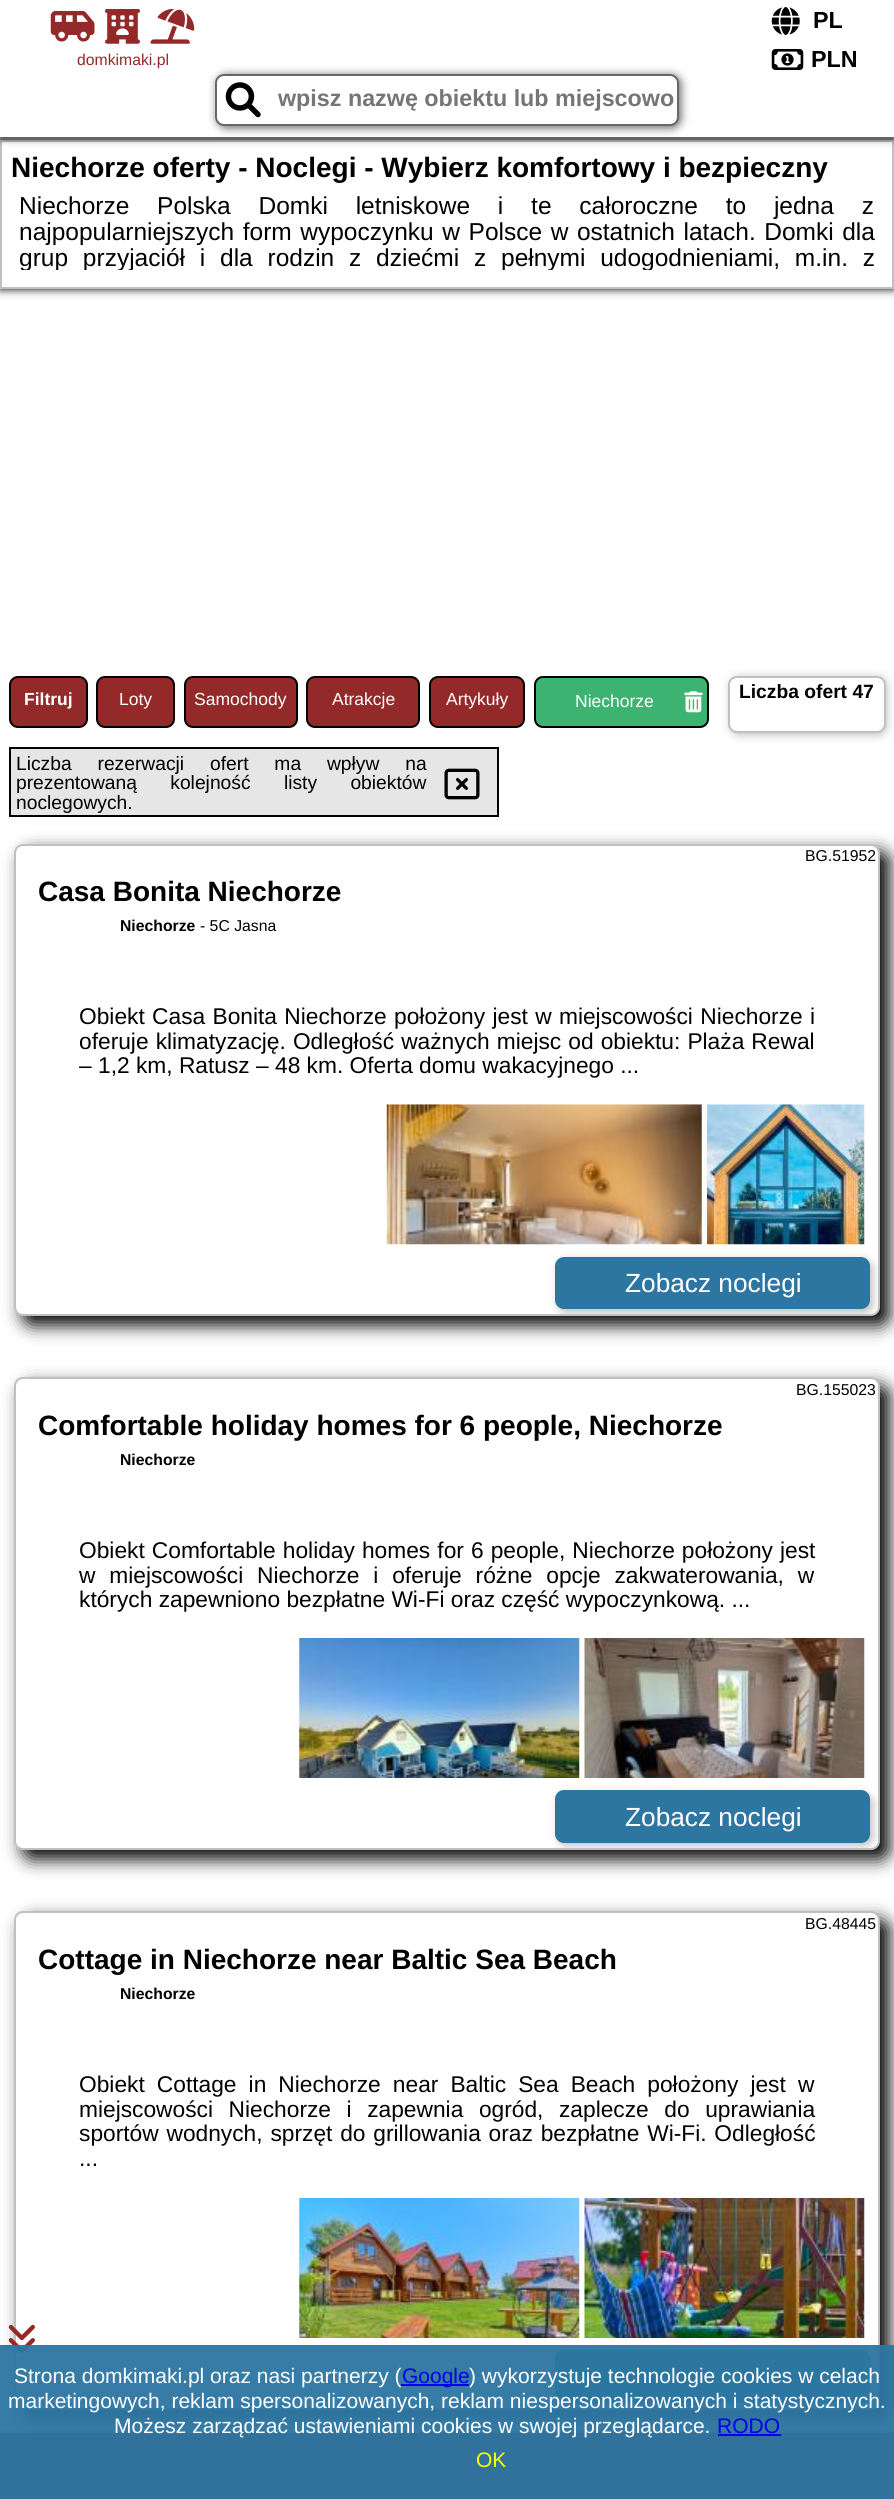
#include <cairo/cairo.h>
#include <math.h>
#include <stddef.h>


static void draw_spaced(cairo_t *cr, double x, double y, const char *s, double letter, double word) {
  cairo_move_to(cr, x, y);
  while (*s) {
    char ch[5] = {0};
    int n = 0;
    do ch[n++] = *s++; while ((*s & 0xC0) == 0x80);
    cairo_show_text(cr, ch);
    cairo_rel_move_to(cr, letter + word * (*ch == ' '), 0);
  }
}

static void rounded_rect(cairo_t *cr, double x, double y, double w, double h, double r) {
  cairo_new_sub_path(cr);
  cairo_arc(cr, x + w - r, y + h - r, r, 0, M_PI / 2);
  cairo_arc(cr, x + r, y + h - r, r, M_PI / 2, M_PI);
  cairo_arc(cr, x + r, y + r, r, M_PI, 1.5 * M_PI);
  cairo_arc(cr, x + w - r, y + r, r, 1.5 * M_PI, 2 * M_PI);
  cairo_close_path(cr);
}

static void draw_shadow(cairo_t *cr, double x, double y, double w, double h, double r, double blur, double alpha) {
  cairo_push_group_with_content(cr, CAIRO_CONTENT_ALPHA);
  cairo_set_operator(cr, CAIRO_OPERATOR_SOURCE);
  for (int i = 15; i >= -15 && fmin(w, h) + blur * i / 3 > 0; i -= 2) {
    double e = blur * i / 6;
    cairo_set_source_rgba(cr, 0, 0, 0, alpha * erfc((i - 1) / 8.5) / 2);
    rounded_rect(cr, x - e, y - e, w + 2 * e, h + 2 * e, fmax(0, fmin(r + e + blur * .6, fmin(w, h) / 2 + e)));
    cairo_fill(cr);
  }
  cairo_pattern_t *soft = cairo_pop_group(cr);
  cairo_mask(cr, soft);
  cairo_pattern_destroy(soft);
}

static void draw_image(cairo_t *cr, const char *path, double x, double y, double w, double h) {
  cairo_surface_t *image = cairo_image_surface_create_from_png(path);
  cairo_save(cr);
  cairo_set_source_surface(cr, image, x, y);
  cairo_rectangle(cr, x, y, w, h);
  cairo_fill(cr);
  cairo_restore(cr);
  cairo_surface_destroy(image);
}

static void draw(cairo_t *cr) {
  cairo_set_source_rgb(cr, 1, 1, 1);
  cairo_paint(cr);
  cairo_set_source_rgb(cr, 0, 0, 0);
  draw_shadow(cr, 0, 140, 894, 149, 0, 4.5, 1);
  cairo_set_source_rgb(cr, 1, 1, 1);
  cairo_rectangle(cr, 1, 141, 892, 147);
  cairo_fill_preserve(cr);
  cairo_set_source_rgb(cr, 192 / 255.0, 192 / 255.0, 192 / 255.0);
  cairo_stroke(cr);
  cairo_set_source_rgb(cr, 0, 0, 0);
  draw_shadow(cr, 0, 0, 894, 137, 0, 4.5, 1);
  cairo_set_source_rgb(cr, 1, 1, 1);
  cairo_rectangle(cr, 0, 0, 894, 137);
  cairo_fill(cr);
  draw_image(cr, "images/1.png", 771, 7, 29, 28);
  draw_image(cr, "images/2.png", 50, 10, 45, 32);
  draw_image(cr, "images/3.png", 105, 9, 35, 35);
  draw_image(cr, "images/4.png", 150, 9, 45, 35);
  draw_image(cr, "images/5.png", 771, 49, 33, 21);
  cairo_set_source_rgb(cr, 103 / 255.0, 104 / 255.0, 104 / 255.0);
  draw_shadow(cr, 217, 75, 464, 53, 9, 4.5, 1);
  cairo_set_source_rgb(cr, 1, 1, 1);
  rounded_rect(cr, 216, 75, 462, 50, 8);
  cairo_fill_preserve(cr);
  cairo_set_source_rgb(cr, 103 / 255.0, 104 / 255.0, 104 / 255.0);
  cairo_stroke(cr);
  draw_image(cr, "images/6.png", 225, 82, 36, 36);
  cairo_set_source_rgb(cr, 148 / 255.0, 41 / 255.0, 41 / 255.0);
  rounded_rect(cr, 10, 677, 77, 50, 8);
  cairo_fill_preserve(cr);
  cairo_set_source_rgb(cr, 0, 0, 0);
  cairo_stroke(cr);
  cairo_set_source_rgb(cr, 148 / 255.0, 41 / 255.0, 41 / 255.0);
  rounded_rect(cr, 97, 677, 77, 50, 8);
  cairo_fill_preserve(cr);
  cairo_set_source_rgb(cr, 0, 0, 0);
  cairo_stroke(cr);
  cairo_set_source_rgb(cr, 148 / 255.0, 41 / 255.0, 41 / 255.0);
  rounded_rect(cr, 185, 677, 112, 50, 8);
  cairo_fill_preserve(cr);
  cairo_set_source_rgb(cr, 0, 0, 0);
  cairo_stroke(cr);
  cairo_set_source_rgb(cr, 148 / 255.0, 41 / 255.0, 41 / 255.0);
  rounded_rect(cr, 307, 677, 112, 50, 8);
  cairo_fill_preserve(cr);
  cairo_set_source_rgb(cr, 0, 0, 0);
  cairo_stroke(cr);
  cairo_set_source_rgb(cr, 148 / 255.0, 41 / 255.0, 41 / 255.0);
  rounded_rect(cr, 430, 677, 94, 50, 8);
  cairo_fill_preserve(cr);
  cairo_set_source_rgb(cr, 0, 0, 0);
  cairo_stroke(cr);
  cairo_set_source_rgb(cr, 60 / 255.0, 179 / 255.0, 113 / 255.0);
  rounded_rect(cr, 535, 677, 173, 50, 8);
  cairo_fill_preserve(cr);
  cairo_set_source_rgb(cr, 0, 0, 0);
  cairo_stroke(cr);
  draw_image(cr, "images/7.png", 684, 691, 19, 22);
  cairo_set_source_rgb(cr, 192 / 255.0, 192 / 255.0, 192 / 255.0);
  draw_shadow(cr, 730, 677, 157, 58, 9, 4.5, 1);
  cairo_set_source_rgb(cr, 1, 1, 1);
  rounded_rect(cr, 729, 677, 156, 55, 8);
  cairo_fill_preserve(cr);
  cairo_set_source_rgb(cr, 192 / 255.0, 192 / 255.0, 192 / 255.0);
  cairo_stroke(cr);
  cairo_set_source_rgb(cr, 230 / 255.0, 230 / 255.0, 230 / 255.0);
  cairo_rectangle(cr, 10, 748, 488, 68);
  cairo_fill_preserve(cr);
  cairo_set_source_rgb(cr, 0, 0, 0);
  cairo_stroke(cr);
  draw_image(cr, "images/8.png", 444, 768, 36, 32);
  cairo_set_source_rgb(cr, 0, 0, 0);
  draw_shadow(cr, 23, 852, 866, 473, 9, 9, 1);
  cairo_set_source_rgb(cr, 1, 1, 1);
  rounded_rect(cr, 15, 845, 864, 470, 8);
  cairo_fill_preserve(cr);
  cairo_set_source_rgb(cr, 192 / 255.0, 192 / 255.0, 192 / 255.0);
  cairo_stroke(cr);
  draw_image(cr, "images/9.png", 386, 1104, 316, 141);
  draw_image(cr, "images/10.png", 707, 1104, 158, 141);
  cairo_save(cr);
  rounded_rect(cr, 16, 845, 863, 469, 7);
  cairo_clip(cr);
  cairo_set_source_rgb(cr, 192 / 255.0, 192 / 255.0, 192 / 255.0);
  draw_shadow(cr, 558, 1260, 315, 53, 9, 4.5, 1);
  cairo_restore(cr);
  cairo_set_source_rgb(cr, 45 / 255.0, 118 / 255.0, 162 / 255.0);
  rounded_rect(cr, 555, 1257, 315, 52, 9);
  cairo_fill(cr);
  cairo_set_source_rgb(cr, 0, 0, 0);
  draw_shadow(cr, 23, 1386, 866, 473, 9, 9, 1);
  cairo_set_source_rgb(cr, 1, 1, 1);
  rounded_rect(cr, 15, 1378, 864, 471, 8);
  cairo_fill_preserve(cr);
  cairo_set_source_rgb(cr, 192 / 255.0, 192 / 255.0, 192 / 255.0);
  cairo_stroke(cr);
  draw_image(cr, "images/11.png", 299, 1638, 281, 140);
  draw_image(cr, "images/12.png", 584, 1638, 281, 140);
  cairo_save(cr);
  rounded_rect(cr, 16, 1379, 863, 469, 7);
  cairo_clip(cr);
  cairo_set_source_rgb(cr, 192 / 255.0, 192 / 255.0, 192 / 255.0);
  draw_shadow(cr, 558, 1794, 315, 52, 9, 4.5, 1);
  cairo_restore(cr);
  cairo_set_source_rgb(cr, 45 / 255.0, 118 / 255.0, 162 / 255.0);
  rounded_rect(cr, 555, 1790, 315, 53, 9);
  cairo_fill(cr);
  cairo_set_source_rgb(cr, 0, 0, 0);
  draw_shadow(cr, 23, 1920, 866, 499, 9, 9, 1);
  cairo_set_source_rgb(cr, 1, 1, 1);
  rounded_rect(cr, 15, 1912, 864, 497, 8);
  cairo_fill_preserve(cr);
  cairo_set_source_rgb(cr, 192 / 255.0, 192 / 255.0, 192 / 255.0);
  cairo_stroke(cr);
  draw_image(cr, "images/13.png", 299, 2198, 281, 140);
  draw_image(cr, "images/14.png", 584, 2198, 281, 140);
  cairo_save(cr);
  rounded_rect(cr, 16, 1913, 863, 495, 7);
  cairo_clip(cr);
  cairo_set_source_rgb(cr, 192 / 255.0, 192 / 255.0, 192 / 255.0);
  draw_shadow(cr, 558, 2354, 315, 52, 9, 4.5, 1);
  cairo_restore(cr);
  cairo_set_source_rgb(cr, 45 / 255.0, 118 / 255.0, 162 / 255.0);
  rounded_rect(cr, 555, 2350, 315, 53, 9);
  cairo_fill(cr);
  draw_image(cr, "images/15.png", 8, 2324, 27, 30);
  cairo_set_source_rgb(cr, 148 / 255.0, 41 / 255.0, 41 / 255.0);
  draw_shadow(cr, 0, 2433, 894, 66, 0, 2, 1);
  cairo_set_source_rgb(cr, 148 / 255.0, 41 / 255.0, 41 / 255.0);
  cairo_rectangle(cr, 0, 2433, 894, 66);
  cairo_fill(cr);
  cairo_set_source_rgba(cr, 45 / 255.0, 118 / 255.0, 162 / 255.0, 0.95);
  cairo_rectangle(cr, 0, 2345, 894, 154);
  cairo_fill(cr);
  cairo_set_source_rgb(cr, 0, 0, 238 / 255.0);
  cairo_rectangle(cr, 718, 2434, 63, 2);
  cairo_fill(cr);
  cairo_select_font_face(cr, "Liberation Sans", CAIRO_FONT_SLANT_NORMAL, CAIRO_FONT_WEIGHT_BOLD);
  cairo_set_font_size(cr, 23.3);
  cairo_set_source_rgb(cr, 0, 0, 0);
  cairo_move_to(cr, 813, 28);
  cairo_show_text(cr, "PL");
  cairo_select_font_face(cr, "Liberation Sans", CAIRO_FONT_SLANT_NORMAL, CAIRO_FONT_WEIGHT_NORMAL);
  cairo_set_font_size(cr, 15.75);
  cairo_set_source_rgb(cr, 148 / 255.0, 41 / 255.0, 41 / 255.0);
  cairo_move_to(cr, 77, 65);
  cairo_show_text(cr, "domkimaki.pl");
  cairo_select_font_face(cr, "Liberation Sans", CAIRO_FONT_SLANT_NORMAL, CAIRO_FONT_WEIGHT_BOLD);
  cairo_set_font_size(cr, 23.3);
  cairo_set_source_rgb(cr, 0, 0, 0);
  cairo_move_to(cr, 811, 67);
  cairo_show_text(cr, "PLN");
  cairo_set_source_rgb(cr, 117 / 255.0, 117 / 255.0, 117 / 255.0);
  cairo_move_to(cr, 278, 106);
  cairo_show_text(cr, "wpisz nazwę obiektu lub miejscowo");
  cairo_set_font_size(cr, 28);
  cairo_set_source_rgb(cr, 0, 0, 0);
  cairo_move_to(cr, 11, 177);
  cairo_show_text(cr, "Niechorze oferty - Noclegi - Wybierz komfortowy i bezpieczny");
  cairo_select_font_face(cr, "Liberation Sans", CAIRO_FONT_SLANT_NORMAL, CAIRO_FONT_WEIGHT_NORMAL);
  cairo_set_font_size(cr, 24.5);
  draw_spaced(cr, 19, 214, "Niechorze Polska Domki letniskowe i te całoroczne to jedna z", 0, 21);
  draw_spaced(cr, 19, 240, "najpopularniejszych form wypoczynku w Polsce w ostatnich latach. Domki dla", 0, 1.75);
  cairo_save(cr);
  cairo_rectangle(cr, 19, 193, 856, 77);
  cairo_clip(cr);
  draw_spaced(cr, 19, 266, "grup przyjaciół i dla rodzin z dziećmi z pełnymi udogodnieniami, m.in. z", 0, 8);
  cairo_restore(cr);
  cairo_select_font_face(cr, "Liberation Sans", CAIRO_FONT_SLANT_NORMAL, CAIRO_FONT_WEIGHT_BOLD);
  cairo_set_font_size(cr, 17.5);
  cairo_set_source_rgb(cr, 1, 1, 1);
  cairo_move_to(cr, 24, 705);
  cairo_show_text(cr, "Filtruj");
  cairo_select_font_face(cr, "Liberation Sans", CAIRO_FONT_SLANT_NORMAL, CAIRO_FONT_WEIGHT_NORMAL);
  cairo_move_to(cr, 119, 705);
  cairo_show_text(cr, "Loty");
  cairo_move_to(cr, 194, 705);
  cairo_show_text(cr, "Samochody");
  cairo_move_to(cr, 332, 705);
  cairo_show_text(cr, "Atrakcje");
  cairo_move_to(cr, 446, 705);
  cairo_show_text(cr, "Artykuły");
  cairo_move_to(cr, 575, 707);
  cairo_show_text(cr, "Niechorze");
  cairo_select_font_face(cr, "Liberation Sans", CAIRO_FONT_SLANT_NORMAL, CAIRO_FONT_WEIGHT_BOLD);
  cairo_set_font_size(cr, 19.25);
  cairo_set_source_rgb(cr, 0, 0, 0);
  cairo_move_to(cr, 739, 698);
  cairo_show_text(cr, "Liczba ofert 47");
  cairo_select_font_face(cr, "Liberation Sans", CAIRO_FONT_SLANT_NORMAL, CAIRO_FONT_WEIGHT_NORMAL);
  draw_spaced(cr, 16, 770, "Liczba rezerwacji ofert ma wpływ na", 0, 20.5);
  draw_spaced(cr, 16, 789, "prezentowaną kolejność listy obiektów", 0, 28);
  cairo_move_to(cr, 16, 809);
  cairo_show_text(cr, "noclegowych.");
  cairo_set_font_size(cr, 15.75);
  cairo_move_to(cr, 805, 861);
  cairo_show_text(cr, "BG.51952");
  cairo_select_font_face(cr, "Liberation Sans", CAIRO_FONT_SLANT_NORMAL, CAIRO_FONT_WEIGHT_BOLD);
  cairo_set_font_size(cr, 28);
  cairo_move_to(cr, 38, 901);
  cairo_show_text(cr, "Casa Bonita Niechorze");
  cairo_set_font_size(cr, 15.75);
  cairo_move_to(cr, 120, 931);
  cairo_show_text(cr, "Niechorze");
  cairo_select_font_face(cr, "Liberation Sans", CAIRO_FONT_SLANT_NORMAL, CAIRO_FONT_WEIGHT_NORMAL);
  cairo_move_to(cr, 200, 931);
  cairo_show_text(cr, "- 5C Jasna");
  cairo_set_font_size(cr, 22.75);
  draw_spaced(cr, 79, 1024, "Obiekt Casa Bonita Niechorze położony jest w miejscowości Niechorze i", 0, 1);
  draw_spaced(cr, 79, 1049, "oferuje klimatyzację. Odległość ważnych miejsc od obiektu: Plaża Rewal", 0, 0.75);
  cairo_move_to(cr, 79, 1073);
  cairo_show_text(cr, "– 1,2 km, Ratusz – 48 km. Oferta domu wakacyjnego ...");
  cairo_set_font_size(cr, 26.25);
  cairo_set_source_rgb(cr, 1, 1, 1);
  cairo_move_to(cr, 625, 1292);
  cairo_show_text(cr, "Zobacz noclegi");
  cairo_set_font_size(cr, 15.75);
  cairo_set_source_rgb(cr, 0, 0, 0);
  cairo_move_to(cr, 796, 1395);
  cairo_show_text(cr, "BG.155023");
  cairo_select_font_face(cr, "Liberation Sans", CAIRO_FONT_SLANT_NORMAL, CAIRO_FONT_WEIGHT_BOLD);
  cairo_set_font_size(cr, 28);
  cairo_move_to(cr, 38, 1435);
  cairo_show_text(cr, "Comfortable holiday homes for 6 people, Niechorze");
  cairo_set_font_size(cr, 15.75);
  cairo_move_to(cr, 120, 1465);
  cairo_show_text(cr, "Niechorze");
  cairo_select_font_face(cr, "Liberation Sans", CAIRO_FONT_SLANT_NORMAL, CAIRO_FONT_WEIGHT_NORMAL);
  cairo_set_font_size(cr, 22.75);
  draw_spaced(cr, 79, 1558, "Obiekt Comfortable holiday homes for 6 people, Niechorze położony jest", 0, 0.75);
  draw_spaced(cr, 79, 1583, "w miejscowości Niechorze i oferuje różne opcje zakwaterowania, w", 0, 7.5);
  cairo_move_to(cr, 79, 1607);
  cairo_show_text(cr, "których zapewniono bezpłatne Wi-Fi oraz część wypoczynkową. ...");
  cairo_set_font_size(cr, 26.25);
  cairo_set_source_rgb(cr, 1, 1, 1);
  cairo_move_to(cr, 625, 1826);
  cairo_show_text(cr, "Zobacz noclegi");
  cairo_set_font_size(cr, 15.75);
  cairo_set_source_rgb(cr, 0, 0, 0);
  cairo_move_to(cr, 805, 1929);
  cairo_show_text(cr, "BG.48445");
  cairo_select_font_face(cr, "Liberation Sans", CAIRO_FONT_SLANT_NORMAL, CAIRO_FONT_WEIGHT_BOLD);
  cairo_set_font_size(cr, 28);
  cairo_move_to(cr, 38, 1969);
  cairo_show_text(cr, "Cottage in Niechorze near Baltic Sea Beach");
  cairo_set_font_size(cr, 15.75);
  cairo_move_to(cr, 120, 1999);
  cairo_show_text(cr, "Niechorze");
  cairo_select_font_face(cr, "Liberation Sans", CAIRO_FONT_SLANT_NORMAL, CAIRO_FONT_WEIGHT_NORMAL);
  cairo_set_font_size(cr, 22.75);
  draw_spaced(cr, 79, 2092, "Obiekt Cottage in Niechorze near Baltic Sea Beach położony jest w", 0, 5.75);
  draw_spaced(cr, 79, 2117, "miejscowości Niechorze i zapewnia ogród, zaplecze do uprawiania", 0, 9.25);
  draw_spaced(cr, 79, 2141, "sportów wodnych, sprzęt do grillowania oraz bezpłatne Wi-Fi. Odległość", 0, 1.5);
  cairo_move_to(cr, 79, 2166);
  cairo_show_text(cr, "...");
  cairo_set_font_size(cr, 21);
  cairo_set_source_rgb(cr, 1, 1, 1);
  cairo_move_to(cr, 14, 2383);
  cairo_show_text(cr, "Strona domkimaki.pl oraz nasi partnerzy (");
  cairo_set_source_rgb(cr, 0, 0, 238 / 255.0);
  cairo_rectangle(cr, 401, 2384, 68, 2);
  cairo_fill(cr);
  cairo_move_to(cr, 402, 2383);
  cairo_show_text(cr, "Google");
  cairo_set_source_rgb(cr, 1, 1, 1);
  cairo_move_to(cr, 469, 2383);
  cairo_show_text(cr, ") wykorzystuje technologie cookies w celach");
  cairo_move_to(cr, 8, 2408);
  cairo_show_text(cr, "marketingowych, reklam spersonalizowanych, reklam niespersonalizowanych i statystycznych.");
  cairo_move_to(cr, 114, 2433);
  cairo_show_text(cr, "Możesz zarządzać ustawieniami cookies w swojej przeglądarce.");
  cairo_set_source_rgb(cr, 0, 0, 238 / 255.0);
  cairo_move_to(cr, 717, 2433);
  cairo_show_text(cr, "RODO");
  cairo_set_source_rgb(cr, 1, 1, 0);
  cairo_move_to(cr, 476, 2467);
  cairo_show_text(cr, "OK");
}

int main(void) {
  cairo_surface_t *surface = cairo_image_surface_create(CAIRO_FORMAT_RGB24, 894, 2499);
  cairo_t *cr = cairo_create(surface);
  cairo_font_options_t *options = cairo_font_options_create();
  cairo_font_options_set_hint_metrics(options, CAIRO_HINT_METRICS_OFF);
  cairo_font_options_set_hint_style(options, CAIRO_HINT_STYLE_NONE);
  cairo_set_font_options(cr, options);
  cairo_set_miter_limit(cr, 4);
  draw(cr);
  cairo_surface_write_to_png(surface, "out.png");
  cairo_font_options_destroy(options);
  cairo_destroy(cr);
  cairo_surface_destroy(surface);
  return 0;
}
